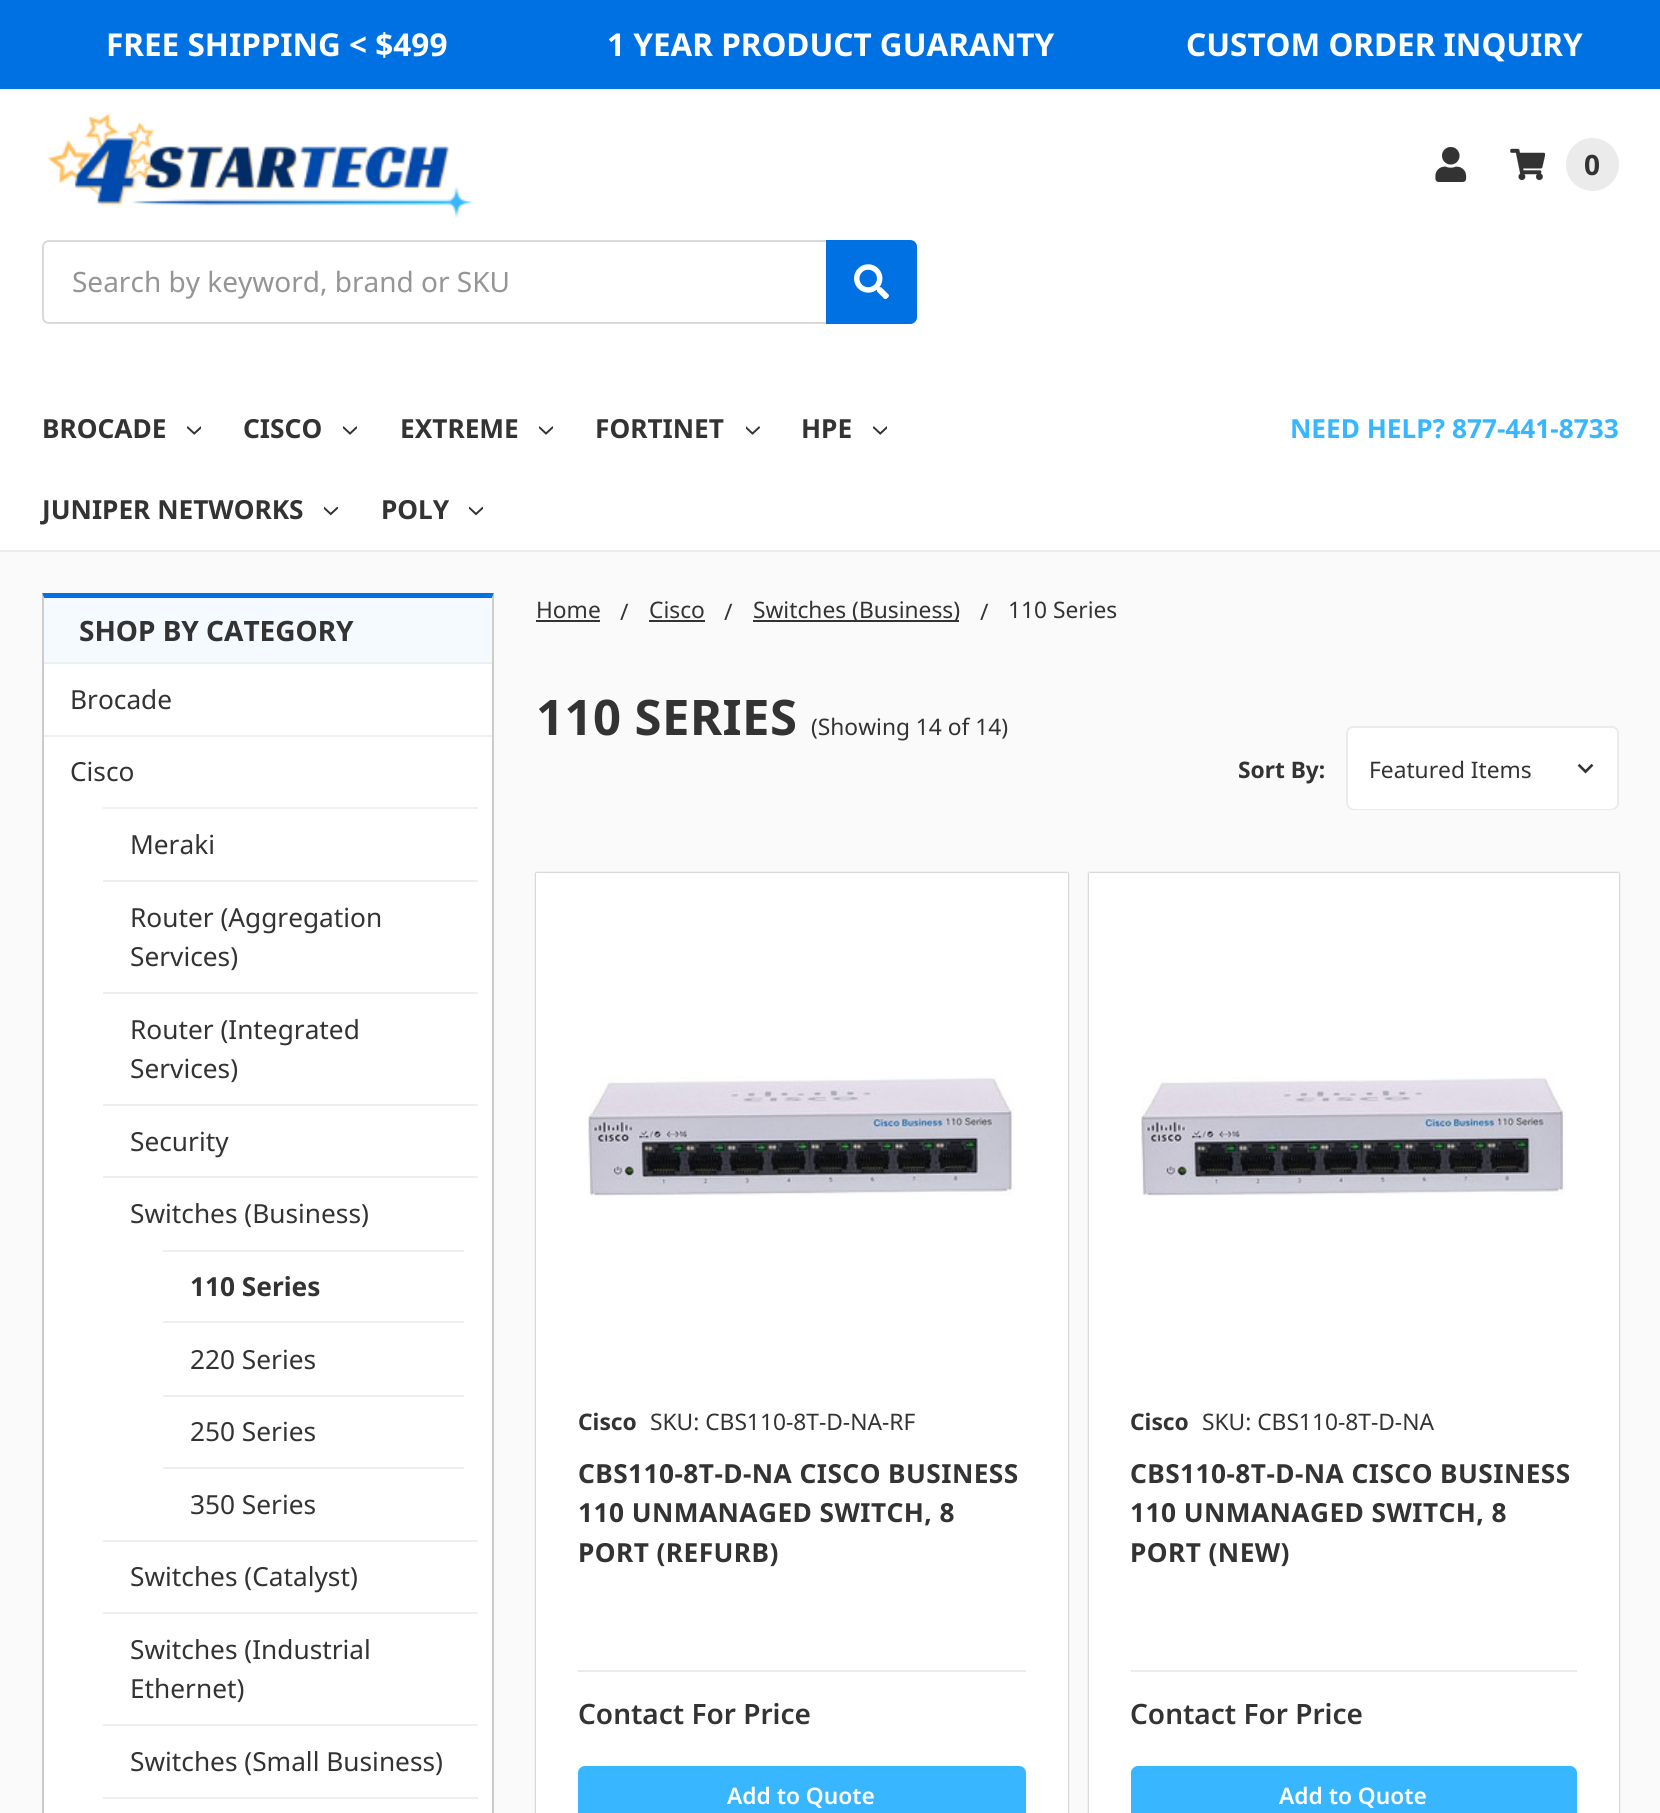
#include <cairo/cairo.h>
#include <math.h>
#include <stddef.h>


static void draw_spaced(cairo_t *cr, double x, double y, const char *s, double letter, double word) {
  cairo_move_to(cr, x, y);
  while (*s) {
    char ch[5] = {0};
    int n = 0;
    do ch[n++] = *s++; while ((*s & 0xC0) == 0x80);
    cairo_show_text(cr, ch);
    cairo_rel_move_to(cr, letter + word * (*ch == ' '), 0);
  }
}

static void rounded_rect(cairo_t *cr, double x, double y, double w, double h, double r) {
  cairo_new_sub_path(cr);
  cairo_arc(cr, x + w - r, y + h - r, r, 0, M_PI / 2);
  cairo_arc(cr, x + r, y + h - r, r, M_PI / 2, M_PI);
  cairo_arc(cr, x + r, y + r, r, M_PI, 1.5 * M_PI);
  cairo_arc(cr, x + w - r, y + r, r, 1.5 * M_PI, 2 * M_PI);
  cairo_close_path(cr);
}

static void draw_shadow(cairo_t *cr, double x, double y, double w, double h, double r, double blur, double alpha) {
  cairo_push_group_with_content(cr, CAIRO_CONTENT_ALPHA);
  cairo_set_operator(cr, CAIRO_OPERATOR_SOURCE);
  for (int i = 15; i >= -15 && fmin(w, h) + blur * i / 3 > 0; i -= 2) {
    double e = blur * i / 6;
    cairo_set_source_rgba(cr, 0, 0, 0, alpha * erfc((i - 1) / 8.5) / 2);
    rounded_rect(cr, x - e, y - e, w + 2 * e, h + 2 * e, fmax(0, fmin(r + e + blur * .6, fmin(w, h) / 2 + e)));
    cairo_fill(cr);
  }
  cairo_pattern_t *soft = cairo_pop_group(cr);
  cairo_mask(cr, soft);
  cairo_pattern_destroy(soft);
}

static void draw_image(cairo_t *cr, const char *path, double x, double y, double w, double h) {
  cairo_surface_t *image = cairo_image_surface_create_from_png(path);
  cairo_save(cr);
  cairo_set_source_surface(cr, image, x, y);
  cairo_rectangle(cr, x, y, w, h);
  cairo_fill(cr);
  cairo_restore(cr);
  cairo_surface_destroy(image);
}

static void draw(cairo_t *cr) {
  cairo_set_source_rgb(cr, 250 / 255.0, 250 / 255.0, 250 / 255.0);
  cairo_paint(cr);
  cairo_set_source_rgb(cr, 0, 113 / 255.0, 227 / 255.0);
  cairo_rectangle(cr, 0, 0, 1660, 89);
  cairo_fill(cr);
  cairo_set_source_rgb(cr, 1, 1, 1);
  cairo_rectangle(cr, 0, 89, 1660, 461);
  cairo_fill(cr);
  cairo_set_source_rgb(cr, 235 / 255.0, 235 / 255.0, 235 / 255.0);
  cairo_rectangle(cr, 0, 550, 1660, 2);
  cairo_fill(cr);
  draw_image(cr, "images/1.png", 47, 113, 426, 106);
  draw_image(cr, "images/2.png", 1435, 147, 32, 35);
  draw_image(cr, "images/3.png", 1510, 148, 35, 33);
  cairo_arc(cr, 1592.5, 164.5, 26.5, 0, 2 * M_PI);
  cairo_fill(cr);
  cairo_set_source_rgb(cr, 217 / 255.0, 217 / 255.0, 217 / 255.0);
  cairo_set_fill_rule(cr, CAIRO_FILL_RULE_EVEN_ODD);
  cairo_new_path(cr);
  cairo_move_to(cr, 49, 240);
  cairo_curve_to(cr, 45, 240, 42, 243, 42, 247);
  cairo_line_to(cr, 42, 317);
  cairo_curve_to(cr, 42, 321, 45, 324, 49, 324);
  cairo_line_to(cr, 910, 324);
  cairo_curve_to(cr, 912, 324, 914, 323, 915, 322);
  cairo_line_to(cr, 49, 322);
  cairo_curve_to(cr, 46, 322, 44, 320, 44, 317);
  cairo_line_to(cr, 44, 247);
  cairo_curve_to(cr, 44, 244, 46, 242, 49, 242);
  cairo_line_to(cr, 915, 242);
  cairo_curve_to(cr, 914, 241, 912, 240, 910, 240);
  cairo_close_path(cr);
  cairo_move_to(cr, 915, 242);
  cairo_line_to(cr, 915, 322);
  cairo_curve_to(cr, 916, 321, 917, 319, 917, 317);
  cairo_line_to(cr, 917, 247);
  cairo_curve_to(cr, 917, 245, 916, 243, 915, 242);
  cairo_close_path(cr);
  cairo_fill(cr);
  cairo_set_source_rgb(cr, 0, 113 / 255.0, 227 / 255.0);
  cairo_new_path(cr);
  cairo_move_to(cr, 826, 240);
  cairo_line_to(cr, 910, 240);
  cairo_curve_to(cr, 914, 240, 917, 243, 917, 247);
  cairo_line_to(cr, 917, 317);
  cairo_curve_to(cr, 917, 321, 914, 324, 910, 324);
  cairo_line_to(cr, 826, 324);
  cairo_close_path(cr);
  cairo_fill(cr);
  draw_image(cr, "images/4.png", 854, 264, 35, 35);
  draw_image(cr, "images/5.png", 187, 426, 14, 9);
  draw_image(cr, "images/6.png", 343, 426, 14, 9);
  draw_image(cr, "images/6.png", 539, 426, 14, 9);
  draw_image(cr, "images/7.png", 746, 426, 14, 9);
  draw_image(cr, "images/5.png", 873, 426, 14, 9);
  draw_image(cr, "images/8.png", 324, 506, 14, 10);
  draw_image(cr, "images/9.png", 469, 506, 14, 10);
  cairo_set_source_rgb(cr, 51 / 255.0, 51 / 255.0, 51 / 255.0);
  cairo_rectangle(cr, 536, 620, 64, 2);
  cairo_fill(cr);
  cairo_rectangle(cr, 649, 620, 56, 2);
  cairo_fill(cr);
  cairo_rectangle(cr, 753, 620, 206, 2);
  cairo_fill(cr);
  cairo_set_source_rgb(cr, 1, 1, 1);
  cairo_rectangle(cr, 44, 664, 448, 1149);
  cairo_fill(cr);
  cairo_set_source_rgb(cr, 0, 113 / 255.0, 227 / 255.0);
  cairo_set_fill_rule(cr, CAIRO_FILL_RULE_WINDING);
  cairo_new_path(cr);
  cairo_move_to(cr, 42, 593);
  cairo_line_to(cr, 494, 593);
  cairo_line_to(cr, 492, 598);
  cairo_line_to(cr, 44, 598);
  cairo_close_path(cr);
  cairo_fill(cr);
  cairo_set_source_rgb(cr, 204 / 255.0, 204 / 255.0, 204 / 255.0);
  cairo_new_path(cr);
  cairo_move_to(cr, 494, 593);
  cairo_line_to(cr, 494, 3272);
  cairo_line_to(cr, 492, 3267);
  cairo_line_to(cr, 492, 598);
  cairo_close_path(cr);
  cairo_fill(cr);
  cairo_new_path(cr);
  cairo_move_to(cr, 42, 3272);
  cairo_line_to(cr, 42, 593);
  cairo_line_to(cr, 44, 598);
  cairo_line_to(cr, 44, 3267);
  cairo_close_path(cr);
  cairo_fill(cr);
  cairo_set_source_rgb(cr, 244 / 255.0, 250 / 255.0, 1);
  cairo_rectangle(cr, 44, 599, 448, 63);
  cairo_fill(cr);
  cairo_set_source_rgb(cr, 239 / 255.0, 239 / 255.0, 239 / 255.0);
  cairo_rectangle(cr, 44, 662, 448, 2);
  cairo_fill(cr);
  cairo_rectangle(cr, 44, 735, 448, 2);
  cairo_fill(cr);
  cairo_rectangle(cr, 103, 807, 375, 2);
  cairo_fill(cr);
  cairo_rectangle(cr, 103, 880, 375, 2);
  cairo_fill(cr);
  cairo_rectangle(cr, 103, 992, 375, 2);
  cairo_fill(cr);
  cairo_rectangle(cr, 103, 1104, 375, 2);
  cairo_fill(cr);
  cairo_rectangle(cr, 103, 1176, 375, 2);
  cairo_fill(cr);
  cairo_rectangle(cr, 163, 1250, 301, 2);
  cairo_fill(cr);
  cairo_rectangle(cr, 163, 1321, 301, 2);
  cairo_fill(cr);
  cairo_rectangle(cr, 163, 1395, 301, 2);
  cairo_fill(cr);
  cairo_rectangle(cr, 163, 1467, 301, 2);
  cairo_fill(cr);
  cairo_rectangle(cr, 103, 1540, 375, 2);
  cairo_fill(cr);
  cairo_rectangle(cr, 103, 1612, 375, 2);
  cairo_fill(cr);
  cairo_rectangle(cr, 103, 1724, 375, 2);
  cairo_fill(cr);
  cairo_rectangle(cr, 103, 1797, 375, 2);
  cairo_fill(cr);
  cairo_set_source_rgb(cr, 1, 1, 1);
  rounded_rect(cr, 1347, 727, 271, 82, 6);
  cairo_fill_preserve(cr);
  cairo_set_source_rgb(cr, 235 / 255.0, 235 / 255.0, 235 / 255.0);
  cairo_stroke(cr);
  cairo_set_source_rgb(cr, 1, 1, 1);
  rounded_rect(cr, 1348, 728, 269, 81, 7);
  cairo_fill(cr);
  draw_image(cr, "images/10.png", 1577, 763, 17, 11);
  cairo_set_source_rgb(cr, 51 / 255.0, 51 / 255.0, 51 / 255.0);
  draw_shadow(cr, 536, 873, 532, 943, 0, 1, 0.5);
  cairo_set_source_rgb(cr, 1, 1, 1);
  cairo_rectangle(cr, 536, 873, 532, 940);
  cairo_fill(cr);
  draw_image(cr, "images/11.png", 588, 1075, 427, 121);
  cairo_set_source_rgb(cr, 235 / 255.0, 235 / 255.0, 235 / 255.0);
  cairo_rectangle(cr, 578, 1670, 448, 2);
  cairo_fill(cr);
  cairo_set_source_rgb(cr, 56 / 255.0, 182 / 255.0, 1);
  rounded_rect(cr, 578, 1766, 448, 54, 7);
  cairo_fill(cr);
  cairo_set_source_rgb(cr, 51 / 255.0, 51 / 255.0, 51 / 255.0);
  draw_shadow(cr, 1089, 873, 530, 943, 0, 1, 0.5);
  cairo_set_source_rgb(cr, 1, 1, 1);
  cairo_rectangle(cr, 1089, 873, 530, 940);
  cairo_fill(cr);
  draw_image(cr, "images/12.png", 1141, 1077, 425, 119);
  cairo_set_source_rgb(cr, 235 / 255.0, 235 / 255.0, 235 / 255.0);
  cairo_rectangle(cr, 1131, 1670, 446, 2);
  cairo_fill(cr);
  cairo_set_source_rgb(cr, 56 / 255.0, 182 / 255.0, 1);
  rounded_rect(cr, 1131, 1766, 446, 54, 7);
  cairo_fill(cr);
  cairo_select_font_face(cr, "Noto Sans", CAIRO_FONT_SLANT_NORMAL, CAIRO_FONT_WEIGHT_BOLD);
  cairo_set_font_size(cr, 31.5);
  cairo_set_source_rgb(cr, 1, 1, 1);
  cairo_move_to(cr, 106, 56);
  cairo_show_text(cr, "FREE SHIPPING < $499");
  cairo_move_to(cr, 607, 56);
  cairo_show_text(cr, "1 YEAR PRODUCT GUARANTY");
  cairo_move_to(cr, 1186, 56);
  cairo_show_text(cr, "CUSTOM ORDER INQUIRY");
  cairo_set_font_size(cr, 28);
  cairo_set_source_rgb(cr, 51 / 255.0, 51 / 255.0, 51 / 255.0);
  cairo_move_to(cr, 1584, 175);
  cairo_show_text(cr, "0");
  cairo_select_font_face(cr, "Noto Sans", CAIRO_FONT_SLANT_NORMAL, CAIRO_FONT_WEIGHT_NORMAL);
  cairo_set_source_rgb(cr, 149 / 255.0, 149 / 255.0, 149 / 255.0);
  cairo_move_to(cr, 72, 292);
  cairo_show_text(cr, "Search by keyword, brand or SKU");
  cairo_select_font_face(cr, "Noto Sans", CAIRO_FONT_SLANT_NORMAL, CAIRO_FONT_WEIGHT_BOLD);
  cairo_set_font_size(cr, 26.25);
  cairo_set_source_rgb(cr, 51 / 255.0, 51 / 255.0, 51 / 255.0);
  cairo_move_to(cr, 42, 438);
  cairo_show_text(cr, "BROCADE");
  cairo_move_to(cr, 243, 438);
  cairo_show_text(cr, "CISCO");
  cairo_move_to(cr, 400, 438);
  cairo_show_text(cr, "EXTREME");
  cairo_move_to(cr, 595, 438);
  cairo_show_text(cr, "FORTINET");
  cairo_move_to(cr, 801, 438);
  cairo_show_text(cr, "HPE");
  cairo_move_to(cr, 42, 519);
  cairo_show_text(cr, "JUNIPER NETWORKS");
  cairo_move_to(cr, 381, 519);
  cairo_show_text(cr, "POLY");
  cairo_set_source_rgb(cr, 56 / 255.0, 182 / 255.0, 1);
  cairo_move_to(cr, 1290, 438);
  cairo_show_text(cr, "NEED HELP? 877-441-8733");
  cairo_select_font_face(cr, "Noto Sans", CAIRO_FONT_SLANT_NORMAL, CAIRO_FONT_WEIGHT_NORMAL);
  cairo_set_font_size(cr, 22.75);
  cairo_set_source_rgb(cr, 51 / 255.0, 51 / 255.0, 51 / 255.0);
  cairo_move_to(cr, 536, 618);
  cairo_show_text(cr, "Home");
  cairo_move_to(cr, 620, 620);
  cairo_show_text(cr, "/");
  cairo_move_to(cr, 649, 618);
  cairo_show_text(cr, "Cisco");
  cairo_move_to(cr, 724, 620);
  cairo_show_text(cr, "/");
  cairo_move_to(cr, 753, 618);
  cairo_show_text(cr, "Switches (Business)");
  cairo_move_to(cr, 980, 620);
  cairo_show_text(cr, "/");
  cairo_move_to(cr, 1008, 618);
  cairo_show_text(cr, "110 Series");
  cairo_select_font_face(cr, "Noto Sans", CAIRO_FONT_SLANT_NORMAL, CAIRO_FONT_WEIGHT_BOLD);
  cairo_set_font_size(cr, 28);
  cairo_move_to(cr, 79, 641);
  cairo_show_text(cr, "SHOP BY CATEGORY");
  cairo_select_font_face(cr, "Noto Sans", CAIRO_FONT_SLANT_NORMAL, CAIRO_FONT_WEIGHT_NORMAL);
  cairo_set_font_size(cr, 26.25);
  cairo_move_to(cr, 70, 709);
  cairo_show_text(cr, "Brocade");
  cairo_move_to(cr, 70, 781);
  cairo_show_text(cr, "Cisco");
  cairo_move_to(cr, 130, 854);
  cairo_show_text(cr, "Meraki");
  cairo_move_to(cr, 130, 927);
  cairo_show_text(cr, "Router (Aggregation");
  cairo_move_to(cr, 130, 966);
  cairo_show_text(cr, "Services)");
  cairo_move_to(cr, 130, 1039);
  cairo_show_text(cr, "Router (Integrated");
  cairo_move_to(cr, 130, 1078);
  cairo_show_text(cr, "Services)");
  cairo_move_to(cr, 130, 1151);
  cairo_show_text(cr, "Security");
  cairo_move_to(cr, 130, 1223);
  cairo_show_text(cr, "Switches (Business)");
  cairo_select_font_face(cr, "Noto Sans", CAIRO_FONT_SLANT_NORMAL, CAIRO_FONT_WEIGHT_BOLD);
  cairo_move_to(cr, 190, 1296);
  cairo_show_text(cr, "110 Series");
  cairo_select_font_face(cr, "Noto Sans", CAIRO_FONT_SLANT_NORMAL, CAIRO_FONT_WEIGHT_NORMAL);
  cairo_move_to(cr, 190, 1369);
  cairo_show_text(cr, "220 Series");
  cairo_move_to(cr, 190, 1441);
  cairo_show_text(cr, "250 Series");
  cairo_move_to(cr, 190, 1514);
  cairo_show_text(cr, "350 Series");
  cairo_move_to(cr, 130, 1586);
  cairo_show_text(cr, "Switches (Catalyst)");
  cairo_move_to(cr, 130, 1659);
  cairo_show_text(cr, "Switches (Industrial");
  cairo_move_to(cr, 130, 1698);
  cairo_show_text(cr, "Ethernet)");
  cairo_move_to(cr, 130, 1771);
  cairo_show_text(cr, "Switches (Small Business)");
  cairo_select_font_face(cr, "Noto Sans", CAIRO_FONT_SLANT_NORMAL, CAIRO_FONT_WEIGHT_BOLD);
  cairo_set_font_size(cr, 49);
  draw_spaced(cr, 536, 735, "110 SERIES", 0.45, 0);
  cairo_select_font_face(cr, "Noto Sans", CAIRO_FONT_SLANT_NORMAL, CAIRO_FONT_WEIGHT_NORMAL);
  cairo_set_font_size(cr, 22.75);
  cairo_move_to(cr, 811, 735);
  cairo_show_text(cr, "(Showing 14 of 14)");
  cairo_select_font_face(cr, "Noto Sans", CAIRO_FONT_SLANT_NORMAL, CAIRO_FONT_WEIGHT_BOLD);
  cairo_move_to(cr, 1238, 778);
  cairo_show_text(cr, "Sort By:");
  cairo_select_font_face(cr, "Noto Sans", CAIRO_FONT_SLANT_NORMAL, CAIRO_FONT_WEIGHT_NORMAL);
  cairo_move_to(cr, 1369, 778);
  cairo_show_text(cr, "Featured Items");
  cairo_select_font_face(cr, "Noto Sans", CAIRO_FONT_SLANT_NORMAL, CAIRO_FONT_WEIGHT_BOLD);
  cairo_move_to(cr, 578, 1430);
  cairo_show_text(cr, "Cisco");
  cairo_select_font_face(cr, "Noto Sans", CAIRO_FONT_SLANT_NORMAL, CAIRO_FONT_WEIGHT_NORMAL);
  cairo_move_to(cr, 650, 1430);
  cairo_show_text(cr, "SKU: CBS110-8T-D-NA-RF");
  cairo_select_font_face(cr, "Noto Sans", CAIRO_FONT_SLANT_NORMAL, CAIRO_FONT_WEIGHT_BOLD);
  cairo_set_font_size(cr, 26.25);
  draw_spaced(cr, 578, 1483, "CBS110-8T-D-NA CISCO BUSINESS", 0.45, 0);
  draw_spaced(cr, 578, 1522, "110 UNMANAGED SWITCH, 8", 0.45, 0);
  draw_spaced(cr, 578, 1562, "PORT (REFURB)", 0.45, 0);
  cairo_select_font_face(cr, "Noto Sans SemiBold", CAIRO_FONT_SLANT_NORMAL, CAIRO_FONT_WEIGHT_NORMAL);
  cairo_set_font_size(cr, 28);
  cairo_move_to(cr, 578, 1724);
  cairo_show_text(cr, "Contact For Price");
  cairo_set_font_size(cr, 22.75);
  cairo_set_source_rgb(cr, 1, 1, 1);
  cairo_move_to(cr, 727, 1804);
  cairo_show_text(cr, "Add to Quote");
  cairo_select_font_face(cr, "Noto Sans", CAIRO_FONT_SLANT_NORMAL, CAIRO_FONT_WEIGHT_BOLD);
  cairo_set_source_rgb(cr, 51 / 255.0, 51 / 255.0, 51 / 255.0);
  cairo_move_to(cr, 1130, 1430);
  cairo_show_text(cr, "Cisco");
  cairo_select_font_face(cr, "Noto Sans", CAIRO_FONT_SLANT_NORMAL, CAIRO_FONT_WEIGHT_NORMAL);
  cairo_move_to(cr, 1202, 1430);
  cairo_show_text(cr, "SKU: CBS110-8T-D-NA");
  cairo_select_font_face(cr, "Noto Sans", CAIRO_FONT_SLANT_NORMAL, CAIRO_FONT_WEIGHT_BOLD);
  cairo_set_font_size(cr, 26.25);
  draw_spaced(cr, 1130, 1483, "CBS110-8T-D-NA CISCO BUSINESS", 0.45, 0);
  draw_spaced(cr, 1130, 1522, "110 UNMANAGED SWITCH, 8", 0.45, 0);
  draw_spaced(cr, 1130, 1562, "PORT (NEW)", 0.45, 0);
  cairo_select_font_face(cr, "Noto Sans SemiBold", CAIRO_FONT_SLANT_NORMAL, CAIRO_FONT_WEIGHT_NORMAL);
  cairo_set_font_size(cr, 28);
  cairo_move_to(cr, 1130, 1724);
  cairo_show_text(cr, "Contact For Price");
  cairo_set_font_size(cr, 22.75);
  cairo_set_source_rgb(cr, 1, 1, 1);
  cairo_move_to(cr, 1279, 1804);
  cairo_show_text(cr, "Add to Quote");
}

int main(void) {
  cairo_surface_t *surface = cairo_image_surface_create(CAIRO_FORMAT_RGB24, 1660, 1813);
  cairo_t *cr = cairo_create(surface);
  cairo_font_options_t *options = cairo_font_options_create();
  cairo_font_options_set_hint_metrics(options, CAIRO_HINT_METRICS_OFF);
  cairo_font_options_set_hint_style(options, CAIRO_HINT_STYLE_NONE);
  cairo_set_font_options(cr, options);
  cairo_set_miter_limit(cr, 4);
  draw(cr);
  cairo_surface_write_to_png(surface, "out.png");
  cairo_font_options_destroy(options);
  cairo_destroy(cr);
  cairo_surface_destroy(surface);
  return 0;
}
